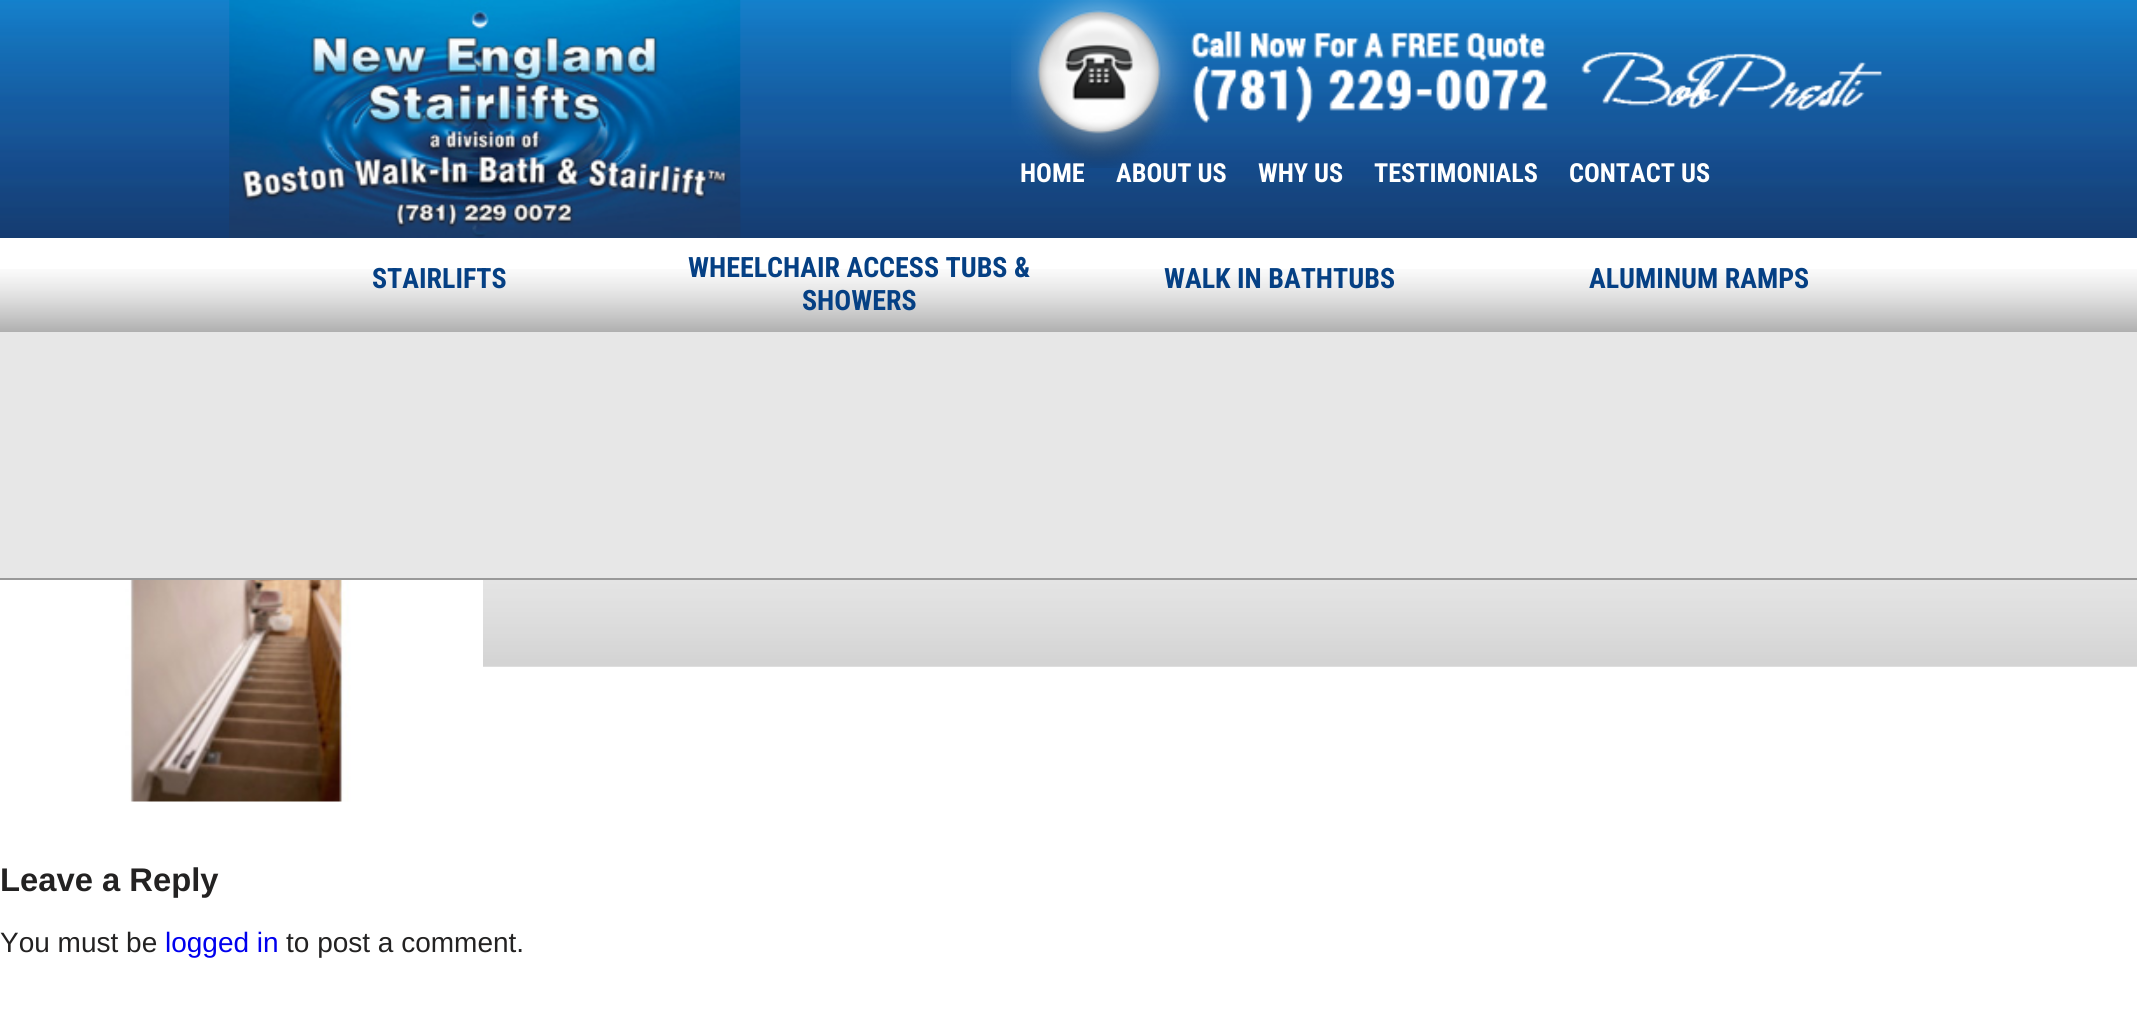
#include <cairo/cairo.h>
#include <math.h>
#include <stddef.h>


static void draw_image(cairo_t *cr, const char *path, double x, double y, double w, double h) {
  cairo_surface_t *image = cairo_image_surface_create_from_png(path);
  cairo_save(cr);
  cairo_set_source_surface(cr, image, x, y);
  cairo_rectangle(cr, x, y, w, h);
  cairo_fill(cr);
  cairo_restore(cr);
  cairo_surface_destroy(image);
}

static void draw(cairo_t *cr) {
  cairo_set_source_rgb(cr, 1, 1, 1);
  cairo_paint(cr);
  draw_image(cr, "images/1.png", 0, 0, 2137, 238);
  draw_image(cr, "images/2.png", 229, 0, 512, 238);
  draw_image(cr, "images/3.png", 1011, 0, 871, 168);
  draw_image(cr, "images/4.png", 0, 269, 2137, 63);
  cairo_set_source_rgb(cr, 231 / 255.0, 231 / 255.0, 231 / 255.0);
  cairo_rectangle(cr, 0, 332, 2137, 246);
  cairo_fill(cr);
  cairo_set_source_rgb(cr, 153 / 255.0, 153 / 255.0, 153 / 255.0);
  cairo_rectangle(cr, 0, 578, 2137, 2);
  cairo_fill(cr);
  draw_image(cr, "images/5.png", 483, 580, 1654, 87);
  draw_image(cr, "images/6.png", 0, 580, 483, 222);
  cairo_select_font_face(cr, "Roboto Condensed", CAIRO_FONT_SLANT_NORMAL, CAIRO_FONT_WEIGHT_BOLD);
  cairo_set_font_size(cr, 26.25);
  cairo_set_source_rgb(cr, 1, 1, 1);
  cairo_move_to(cr, 1020, 182);
  cairo_show_text(cr, "HOME");
  cairo_move_to(cr, 1116, 182);
  cairo_show_text(cr, "ABOUT US");
  cairo_move_to(cr, 1258, 182);
  cairo_show_text(cr, "WHY US");
  cairo_move_to(cr, 1374, 182);
  cairo_show_text(cr, "TESTIMONIALS");
  cairo_move_to(cr, 1569, 182);
  cairo_show_text(cr, "CONTACT US");
  cairo_set_font_size(cr, 28);
  cairo_set_source_rgb(cr, 5 / 255.0, 64 / 255.0, 132 / 255.0);
  cairo_move_to(cr, 372, 288);
  cairo_show_text(cr, "STAIRLIFTS");
  cairo_move_to(cr, 688, 277);
  cairo_show_text(cr, "WHEELCHAIR ACCESS TUBS &");
  cairo_move_to(cr, 802, 310);
  cairo_show_text(cr, "SHOWERS");
  cairo_move_to(cr, 1164, 288);
  cairo_show_text(cr, "WALK IN BATHTUBS");
  cairo_move_to(cr, 1589, 288);
  cairo_show_text(cr, "ALUMINUM RAMPS");
  cairo_select_font_face(cr, "Liberation Sans", CAIRO_FONT_SLANT_NORMAL, CAIRO_FONT_WEIGHT_BOLD);
  cairo_set_font_size(cr, 32.75);
  cairo_set_source_rgb(cr, 35 / 255.0, 34 / 255.0, 34 / 255.0);
  cairo_move_to(cr, 0, 891);
  cairo_show_text(cr, "Leave a Reply");
  cairo_select_font_face(cr, "Liberation Sans", CAIRO_FONT_SLANT_NORMAL, CAIRO_FONT_WEIGHT_NORMAL);
  cairo_set_font_size(cr, 28);
  cairo_move_to(cr, 0, 952);
  cairo_show_text(cr, "You must be");
  cairo_set_source_rgb(cr, 0, 0, 238 / 255.0);
  cairo_move_to(cr, 165, 952);
  cairo_show_text(cr, "logged in");
  cairo_set_source_rgb(cr, 35 / 255.0, 34 / 255.0, 34 / 255.0);
  cairo_move_to(cr, 286, 952);
  cairo_show_text(cr, "to post a comment.");
}

int main(void) {
  cairo_surface_t *surface = cairo_image_surface_create(CAIRO_FORMAT_RGB24, 2137, 1023);
  cairo_t *cr = cairo_create(surface);
  cairo_font_options_t *options = cairo_font_options_create();
  cairo_font_options_set_hint_metrics(options, CAIRO_HINT_METRICS_OFF);
  cairo_font_options_set_hint_style(options, CAIRO_HINT_STYLE_NONE);
  cairo_set_font_options(cr, options);
  cairo_set_miter_limit(cr, 4);
  draw(cr);
  cairo_surface_write_to_png(surface, "out.png");
  cairo_font_options_destroy(options);
  cairo_destroy(cr);
  cairo_surface_destroy(surface);
  return 0;
}
